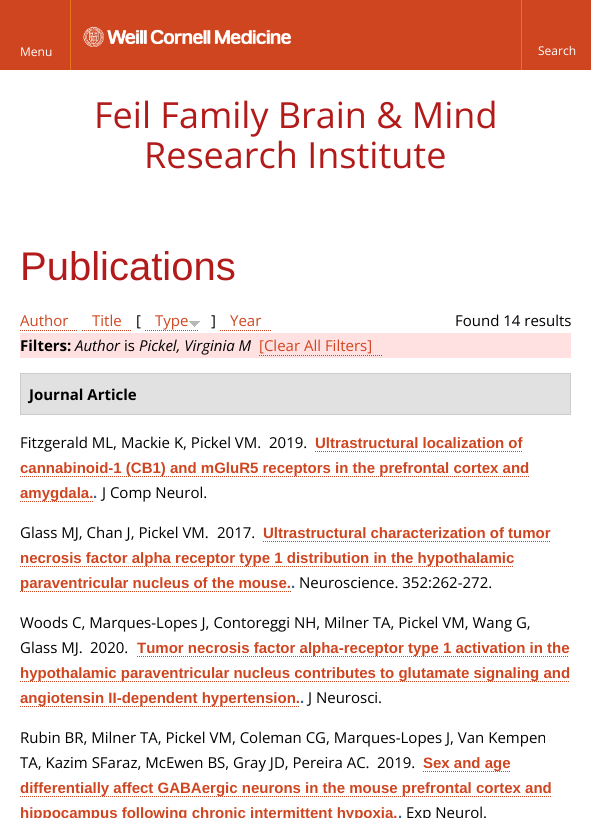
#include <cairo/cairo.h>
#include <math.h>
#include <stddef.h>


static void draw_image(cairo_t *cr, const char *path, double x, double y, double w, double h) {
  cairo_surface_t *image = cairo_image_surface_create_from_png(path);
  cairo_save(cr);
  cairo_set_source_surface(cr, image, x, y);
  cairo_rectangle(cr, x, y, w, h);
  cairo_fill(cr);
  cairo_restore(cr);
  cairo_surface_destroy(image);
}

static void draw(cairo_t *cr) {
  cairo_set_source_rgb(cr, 1, 1, 1);
  cairo_paint(cr);
  cairo_set_source_rgb(cr, 207 / 255.0, 69 / 255.0, 32 / 255.0);
  cairo_rectangle(cr, 0, 0, 591, 70);
  cairo_fill(cr);
  draw_image(cr, "images/1.png", 83, 26, 208, 21);
  cairo_set_source_rgb(cr, 231 / 255.0, 117 / 255.0, 29 / 255.0);
  cairo_rectangle(cr, 70, 0, 1, 70);
  cairo_fill(cr);
  cairo_rectangle(cr, 521, 0, 1, 70);
  cairo_fill(cr);
  cairo_new_path(cr);
  cairo_move_to(cr, 20, 330.5);
  cairo_line_to(cr, 78, 330.5);
  cairo_set_source_rgb(cr, 207 / 255.0, 69 / 255.0, 32 / 255.0);
  cairo_set_line_width(cr, 1);
  cairo_set_dash(cr, (double[]){1, 1}, 2, 0);
  cairo_stroke(cr);
  cairo_new_path(cr);
  cairo_move_to(cr, 82, 330.5);
  cairo_line_to(cr, 132, 330.5);
  cairo_stroke(cr);
  cairo_new_path(cr);
  cairo_move_to(cr, 145, 330.5);
  cairo_line_to(cr, 198, 330.5);
  cairo_stroke(cr);
  draw_image(cr, "images/2.png", 189, 321, 11, 6);
  cairo_new_path(cr);
  cairo_move_to(cr, 220, 330.5);
  cairo_line_to(cr, 271, 330.5);
  cairo_stroke(cr);
  cairo_set_source_rgb(cr, 1, 225 / 255.0, 225 / 255.0);
  cairo_rectangle(cr, 20, 333, 551, 25);
  cairo_fill(cr);
  cairo_new_path(cr);
  cairo_move_to(cr, 259, 355.5);
  cairo_line_to(cr, 382, 355.5);
  cairo_set_source_rgb(cr, 207 / 255.0, 69 / 255.0, 32 / 255.0);
  cairo_stroke(cr);
  cairo_set_source_rgb(cr, 225 / 255.0, 225 / 255.0, 225 / 255.0);
  cairo_rectangle(cr, 20.5, 373.5, 550, 41);
  cairo_fill_preserve(cr);
  cairo_set_source_rgb(cr, 204 / 255.0, 204 / 255.0, 204 / 255.0);
  cairo_set_dash(cr, NULL, 0, 0);
  cairo_stroke(cr);
  cairo_new_path(cr);
  cairo_move_to(cr, 315, 451.5);
  cairo_line_to(cr, 523, 451.5);
  cairo_set_source_rgb(cr, 207 / 255.0, 69 / 255.0, 32 / 255.0);
  cairo_set_dash(cr, (double[]){1, 1}, 2, 0);
  cairo_stroke(cr);
  cairo_new_path(cr);
  cairo_move_to(cr, 20, 476.5);
  cairo_line_to(cr, 529, 476.5);
  cairo_stroke(cr);
  cairo_new_path(cr);
  cairo_move_to(cr, 20, 501.5);
  cairo_line_to(cr, 93, 501.5);
  cairo_stroke(cr);
  cairo_new_path(cr);
  cairo_move_to(cr, 263, 541.5);
  cairo_line_to(cr, 550, 541.5);
  cairo_stroke(cr);
  cairo_new_path(cr);
  cairo_move_to(cr, 20, 566.5);
  cairo_line_to(cr, 514, 566.5);
  cairo_stroke(cr);
  cairo_new_path(cr);
  cairo_move_to(cr, 20, 591.5);
  cairo_line_to(cr, 291, 591.5);
  cairo_stroke(cr);
  cairo_new_path(cr);
  cairo_move_to(cr, 137, 656.5);
  cairo_line_to(cr, 569, 656.5);
  cairo_stroke(cr);
  cairo_new_path(cr);
  cairo_move_to(cr, 20, 681.5);
  cairo_line_to(cr, 570, 681.5);
  cairo_stroke(cr);
  cairo_new_path(cr);
  cairo_move_to(cr, 20, 706.5);
  cairo_line_to(cr, 300, 706.5);
  cairo_stroke(cr);
  cairo_new_path(cr);
  cairo_move_to(cr, 423, 771.5);
  cairo_line_to(cr, 511, 771.5);
  cairo_stroke(cr);
  cairo_new_path(cr);
  cairo_move_to(cr, 20, 796.5);
  cairo_line_to(cr, 552, 796.5);
  cairo_stroke(cr);
  cairo_select_font_face(cr, "Open Sans", CAIRO_FONT_SLANT_NORMAL, CAIRO_FONT_WEIGHT_NORMAL);
  cairo_set_font_size(cr, 12);
  cairo_set_source_rgb(cr, 1, 1, 1);
  cairo_move_to(cr, 20, 56);
  cairo_show_text(cr, "Menu");
  cairo_move_to(cr, 538, 55);
  cairo_show_text(cr, "Search");
  cairo_set_font_size(cr, 36);
  cairo_set_source_rgb(cr, 179 / 255.0, 27 / 255.0, 27 / 255.0);
  cairo_move_to(cr, 94, 128);
  cairo_show_text(cr, "Feil Family Brain & Mind");
  cairo_move_to(cr, 144, 168);
  cairo_show_text(cr, "Research Institute");
  cairo_select_font_face(cr, "Liberation Sans", CAIRO_FONT_SLANT_NORMAL, CAIRO_FONT_WEIGHT_NORMAL);
  cairo_set_font_size(cr, 40);
  cairo_move_to(cr, 20, 280);
  cairo_show_text(cr, "Publications");
  cairo_select_font_face(cr, "Open Sans", CAIRO_FONT_SLANT_NORMAL, CAIRO_FONT_WEIGHT_NORMAL);
  cairo_set_font_size(cr, 15);
  cairo_set_source_rgb(cr, 207 / 255.0, 69 / 255.0, 32 / 255.0);
  cairo_move_to(cr, 20, 326);
  cairo_show_text(cr, "Author");
  cairo_move_to(cr, 92, 326);
  cairo_show_text(cr, "Title");
  cairo_set_source_rgb(cr, 0, 0, 0);
  cairo_move_to(cr, 136, 326);
  cairo_show_text(cr, "[");
  cairo_set_source_rgb(cr, 207 / 255.0, 69 / 255.0, 32 / 255.0);
  cairo_move_to(cr, 155, 326);
  cairo_show_text(cr, "Type");
  cairo_set_source_rgb(cr, 0, 0, 0);
  cairo_move_to(cr, 211, 326);
  cairo_show_text(cr, "]");
  cairo_set_source_rgb(cr, 207 / 255.0, 69 / 255.0, 32 / 255.0);
  cairo_move_to(cr, 230, 326);
  cairo_show_text(cr, "Year");
  cairo_set_source_rgb(cr, 0, 0, 0);
  cairo_move_to(cr, 455, 326);
  cairo_show_text(cr, "Found 14 results");
  cairo_select_font_face(cr, "Open Sans", CAIRO_FONT_SLANT_NORMAL, CAIRO_FONT_WEIGHT_BOLD);
  cairo_move_to(cr, 20, 351);
  cairo_show_text(cr, "Filters:");
  cairo_select_font_face(cr, "Open Sans", CAIRO_FONT_SLANT_ITALIC, CAIRO_FONT_WEIGHT_NORMAL);
  cairo_move_to(cr, 75, 351);
  cairo_show_text(cr, "Author");
  cairo_select_font_face(cr, "Open Sans", CAIRO_FONT_SLANT_NORMAL, CAIRO_FONT_WEIGHT_NORMAL);
  cairo_move_to(cr, 124, 351);
  cairo_show_text(cr, "is");
  cairo_select_font_face(cr, "Open Sans", CAIRO_FONT_SLANT_ITALIC, CAIRO_FONT_WEIGHT_NORMAL);
  cairo_move_to(cr, 139, 351);
  cairo_show_text(cr, "Pickel, Virginia M");
  cairo_select_font_face(cr, "Open Sans", CAIRO_FONT_SLANT_NORMAL, CAIRO_FONT_WEIGHT_NORMAL);
  cairo_set_source_rgb(cr, 207 / 255.0, 69 / 255.0, 32 / 255.0);
  cairo_move_to(cr, 259, 351);
  cairo_show_text(cr, "[Clear All Filters]");
  cairo_select_font_face(cr, "Open Sans", CAIRO_FONT_SLANT_NORMAL, CAIRO_FONT_WEIGHT_BOLD);
  cairo_set_source_rgb(cr, 0, 0, 0);
  cairo_move_to(cr, 29, 400);
  cairo_show_text(cr, "Journal Article");
  cairo_select_font_face(cr, "Open Sans", CAIRO_FONT_SLANT_NORMAL, CAIRO_FONT_WEIGHT_NORMAL);
  cairo_move_to(cr, 20, 448);
  cairo_show_text(cr, "Fitzgerald ML, Mackie K, Pickel VM.");
  cairo_move_to(cr, 269, 448);
  cairo_show_text(cr, "2019.");
  cairo_select_font_face(cr, "Liberation Sans", CAIRO_FONT_SLANT_NORMAL, CAIRO_FONT_WEIGHT_BOLD);
  cairo_set_source_rgb(cr, 207 / 255.0, 69 / 255.0, 32 / 255.0);
  cairo_move_to(cr, 315, 448);
  cairo_show_text(cr, "Ultrastructural localization of");
  cairo_move_to(cr, 20, 473);
  cairo_show_text(cr, "cannabinoid-1 (CB1) and mGluR5 receptors in the prefrontal cortex and");
  cairo_move_to(cr, 20, 498);
  cairo_show_text(cr, "amygdala.");
  cairo_set_source_rgb(cr, 51 / 255.0, 101 / 255.0, 153 / 255.0);
  cairo_move_to(cr, 93, 498);
  cairo_show_text(cr, ".");
  cairo_select_font_face(cr, "Open Sans", CAIRO_FONT_SLANT_NORMAL, CAIRO_FONT_WEIGHT_NORMAL);
  cairo_set_source_rgb(cr, 0, 0, 0);
  cairo_move_to(cr, 102, 498);
  cairo_show_text(cr, "J Comp Neurol.");
  cairo_move_to(cr, 20, 538);
  cairo_show_text(cr, "Glass MJ, Chan J, Pickel VM.");
  cairo_move_to(cr, 217, 538);
  cairo_show_text(cr, "2017.");
  cairo_select_font_face(cr, "Liberation Sans", CAIRO_FONT_SLANT_NORMAL, CAIRO_FONT_WEIGHT_BOLD);
  cairo_set_source_rgb(cr, 207 / 255.0, 69 / 255.0, 32 / 255.0);
  cairo_move_to(cr, 263, 538);
  cairo_show_text(cr, "Ultrastructural characterization of tumor");
  cairo_move_to(cr, 20, 563);
  cairo_show_text(cr, "necrosis factor alpha receptor type 1 distribution in the hypothalamic");
  cairo_move_to(cr, 20, 588);
  cairo_show_text(cr, "paraventricular nucleus of the mouse.");
  cairo_set_source_rgb(cr, 51 / 255.0, 101 / 255.0, 153 / 255.0);
  cairo_move_to(cr, 291, 588);
  cairo_show_text(cr, ".");
  cairo_select_font_face(cr, "Open Sans", CAIRO_FONT_SLANT_NORMAL, CAIRO_FONT_WEIGHT_NORMAL);
  cairo_set_source_rgb(cr, 0, 0, 0);
  cairo_move_to(cr, 299, 588);
  cairo_show_text(cr, "Neuroscience. 352:262-272.");
  cairo_move_to(cr, 20, 628);
  cairo_show_text(cr, "Woods C, Marques-Lopes J, Contoreggi NH, Milner TA, Pickel VM, Wang G,");
  cairo_move_to(cr, 20, 653);
  cairo_show_text(cr, "Glass MJ.");
  cairo_move_to(cr, 90, 653);
  cairo_show_text(cr, "2020.");
  cairo_select_font_face(cr, "Liberation Sans", CAIRO_FONT_SLANT_NORMAL, CAIRO_FONT_WEIGHT_BOLD);
  cairo_set_source_rgb(cr, 207 / 255.0, 69 / 255.0, 32 / 255.0);
  cairo_move_to(cr, 137, 653);
  cairo_show_text(cr, "Tumor necrosis factor alpha-receptor type 1 activation in the");
  cairo_move_to(cr, 20, 678);
  cairo_show_text(cr, "hypothalamic paraventricular nucleus contributes to glutamate signaling and");
  cairo_move_to(cr, 20, 703);
  cairo_show_text(cr, "angiotensin II-dependent hypertension.");
  cairo_set_source_rgb(cr, 51 / 255.0, 101 / 255.0, 153 / 255.0);
  cairo_move_to(cr, 300, 703);
  cairo_show_text(cr, ".");
  cairo_select_font_face(cr, "Open Sans", CAIRO_FONT_SLANT_NORMAL, CAIRO_FONT_WEIGHT_NORMAL);
  cairo_set_source_rgb(cr, 0, 0, 0);
  cairo_move_to(cr, 308, 703);
  cairo_show_text(cr, "J Neurosci.");
  cairo_move_to(cr, 20, 743);
  cairo_show_text(cr, "Rubin BR, Milner TA, Pickel VM, Coleman CG, Marques-Lopes J, Van Kempen");
  cairo_move_to(cr, 20, 768);
  cairo_show_text(cr, "TA, Kazim SFaraz, McEwen BS, Gray JD, Pereira AC.");
  cairo_move_to(cr, 377, 768);
  cairo_show_text(cr, "2019.");
  cairo_select_font_face(cr, "Liberation Sans", CAIRO_FONT_SLANT_NORMAL, CAIRO_FONT_WEIGHT_BOLD);
  cairo_set_source_rgb(cr, 207 / 255.0, 69 / 255.0, 32 / 255.0);
  cairo_move_to(cr, 423, 768);
  cairo_show_text(cr, "Sex and age");
  cairo_move_to(cr, 20, 793);
  cairo_show_text(cr, "differentially affect GABAergic neurons in the mouse prefrontal cortex and");
  cairo_move_to(cr, 20, 818);
  cairo_show_text(cr, "hippocampus following chronic intermittent hypoxia.");
  cairo_set_source_rgb(cr, 51 / 255.0, 101 / 255.0, 153 / 255.0);
  cairo_move_to(cr, 398, 818);
  cairo_show_text(cr, ".");
  cairo_select_font_face(cr, "Open Sans", CAIRO_FONT_SLANT_NORMAL, CAIRO_FONT_WEIGHT_NORMAL);
  cairo_set_source_rgb(cr, 0, 0, 0);
  cairo_move_to(cr, 406, 818);
  cairo_show_text(cr, "Exp Neurol.");
}

int main(void) {
  cairo_surface_t *surface = cairo_image_surface_create(CAIRO_FORMAT_RGB24, 591, 818);
  cairo_t *cr = cairo_create(surface);
  cairo_font_options_t *options = cairo_font_options_create();
  cairo_font_options_set_hint_metrics(options, CAIRO_HINT_METRICS_OFF);
  cairo_font_options_set_hint_style(options, CAIRO_HINT_STYLE_NONE);
  cairo_set_font_options(cr, options);
  cairo_set_miter_limit(cr, 4);
  draw(cr);
  cairo_surface_write_to_png(surface, "out.png");
  cairo_font_options_destroy(options);
  cairo_destroy(cr);
  cairo_surface_destroy(surface);
  return 0;
}
